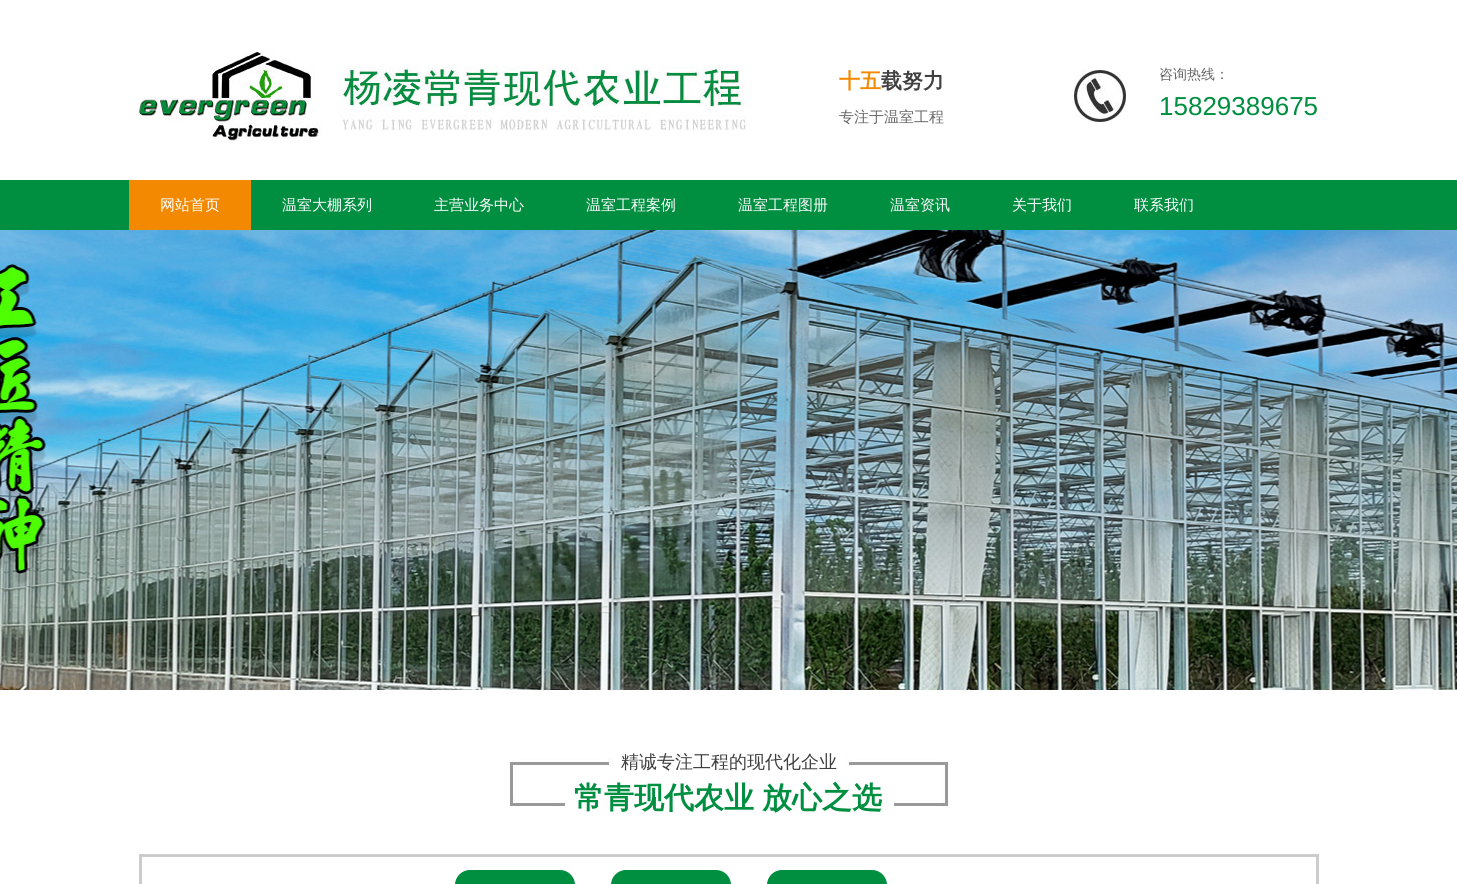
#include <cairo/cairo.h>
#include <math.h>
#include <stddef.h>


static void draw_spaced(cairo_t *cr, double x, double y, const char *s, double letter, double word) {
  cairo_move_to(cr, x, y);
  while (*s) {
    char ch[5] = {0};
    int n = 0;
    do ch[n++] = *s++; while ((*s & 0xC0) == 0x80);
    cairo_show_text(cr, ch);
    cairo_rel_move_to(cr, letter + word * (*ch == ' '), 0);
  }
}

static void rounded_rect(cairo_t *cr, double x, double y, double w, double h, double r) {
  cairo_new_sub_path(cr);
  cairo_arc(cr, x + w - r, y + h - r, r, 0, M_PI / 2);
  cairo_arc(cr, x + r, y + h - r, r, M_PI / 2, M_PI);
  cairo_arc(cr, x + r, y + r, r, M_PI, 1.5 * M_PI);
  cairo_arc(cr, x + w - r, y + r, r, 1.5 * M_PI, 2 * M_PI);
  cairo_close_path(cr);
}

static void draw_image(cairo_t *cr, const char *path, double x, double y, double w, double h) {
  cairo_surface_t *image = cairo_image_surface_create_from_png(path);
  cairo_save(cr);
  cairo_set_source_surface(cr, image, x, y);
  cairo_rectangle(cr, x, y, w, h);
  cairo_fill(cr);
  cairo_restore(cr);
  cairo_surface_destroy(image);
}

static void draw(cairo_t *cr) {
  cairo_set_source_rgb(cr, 1, 1, 1);
  cairo_paint(cr);
  draw_image(cr, "images/1.png", 139, 50, 608, 91);
  draw_image(cr, "images/2.png", 1074, 70, 52, 52);
  cairo_set_source_rgb(cr, 0, 142 / 255.0, 64 / 255.0);
  cairo_rectangle(cr, 0, 180, 1457, 50);
  cairo_fill(cr);
  cairo_set_source_rgb(cr, 243 / 255.0, 137 / 255.0, 0);
  cairo_rectangle(cr, 129, 180, 122, 50);
  cairo_fill(cr);
  draw_image(cr, "images/3.png", 0, 230, 1457, 460);
  draw_image(cr, "images/4.png", 510, 758, 438, 48);
  draw_image(cr, "images/5.png", 139, 854, 1180, 30);
  cairo_set_source_rgb(cr, 0, 142 / 255.0, 64 / 255.0);
  rounded_rect(cr, 455, 870, 120, 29, 15);
  cairo_fill(cr);
  rounded_rect(cr, 611, 870, 120, 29, 15);
  cairo_fill(cr);
  rounded_rect(cr, 767, 870, 120, 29, 15);
  cairo_fill(cr);
  cairo_select_font_face(cr, "WenQuanYi Zen Hei", CAIRO_FONT_SLANT_NORMAL, CAIRO_FONT_WEIGHT_BOLD);
  cairo_set_font_size(cr, 21);
  cairo_set_source_rgb(cr, 243 / 255.0, 137 / 255.0, 0);
  cairo_move_to(cr, 839, 88);
  cairo_show_text(cr, "十五");
  cairo_set_source_rgb(cr, 63 / 255.0, 63 / 255.0, 63 / 255.0);
  cairo_move_to(cr, 881, 88);
  cairo_show_text(cr, "载努力");
  cairo_select_font_face(cr, "WenQuanYi Zen Hei Medium", CAIRO_FONT_SLANT_NORMAL, CAIRO_FONT_WEIGHT_NORMAL);
  cairo_set_font_size(cr, 15);
  cairo_set_source_rgb(cr, 102 / 255.0, 102 / 255.0, 102 / 255.0);
  cairo_move_to(cr, 839, 122);
  cairo_show_text(cr, "专注于温室工程");
  cairo_set_font_size(cr, 14);
  cairo_move_to(cr, 1159, 79);
  cairo_show_text(cr, "咨询热线：");
  cairo_select_font_face(cr, "Liberation Sans", CAIRO_FONT_SLANT_NORMAL, CAIRO_FONT_WEIGHT_NORMAL);
  cairo_set_font_size(cr, 26);
  cairo_set_source_rgb(cr, 0, 142 / 255.0, 64 / 255.0);
  cairo_move_to(cr, 1159, 115);
  cairo_show_text(cr, "15829389675");
  cairo_select_font_face(cr, "WenQuanYi Zen Hei Medium", CAIRO_FONT_SLANT_NORMAL, CAIRO_FONT_WEIGHT_NORMAL);
  cairo_set_font_size(cr, 15);
  cairo_set_source_rgb(cr, 1, 1, 1);
  cairo_move_to(cr, 160, 210);
  cairo_show_text(cr, "网站首页");
  cairo_move_to(cr, 282, 210);
  cairo_show_text(cr, "温室大棚系列");
  cairo_move_to(cr, 434, 210);
  cairo_show_text(cr, "主营业务中心");
  cairo_move_to(cr, 586, 210);
  cairo_show_text(cr, "温室工程案例");
  cairo_move_to(cr, 738, 210);
  cairo_show_text(cr, "温室工程图册");
  cairo_move_to(cr, 890, 210);
  cairo_show_text(cr, "温室资讯");
  cairo_move_to(cr, 1012, 210);
  cairo_show_text(cr, "关于我们");
  cairo_move_to(cr, 1134, 210);
  cairo_show_text(cr, "联系我们");
  cairo_set_font_size(cr, 18);
  cairo_set_source_rgb(cr, 63 / 255.0, 63 / 255.0, 63 / 255.0);
  cairo_move_to(cr, 621, 768);
  cairo_show_text(cr, "精诚专注工程的现代化企业");
  cairo_select_font_face(cr, "WenQuanYi Zen Hei", CAIRO_FONT_SLANT_NORMAL, CAIRO_FONT_WEIGHT_BOLD);
  cairo_set_font_size(cr, 30);
  cairo_set_source_rgb(cr, 0, 142 / 255.0, 64 / 255.0);
  draw_spaced(cr, 574, 808, "常青现代农业 放心之选", 0, -1);
}

int main(void) {
  cairo_surface_t *surface = cairo_image_surface_create(CAIRO_FORMAT_RGB24, 1457, 884);
  cairo_t *cr = cairo_create(surface);
  cairo_font_options_t *options = cairo_font_options_create();
  cairo_font_options_set_hint_metrics(options, CAIRO_HINT_METRICS_OFF);
  cairo_font_options_set_hint_style(options, CAIRO_HINT_STYLE_NONE);
  cairo_set_font_options(cr, options);
  cairo_set_miter_limit(cr, 4);
  draw(cr);
  cairo_surface_write_to_png(surface, "out.png");
  cairo_font_options_destroy(options);
  cairo_destroy(cr);
  cairo_surface_destroy(surface);
  return 0;
}
